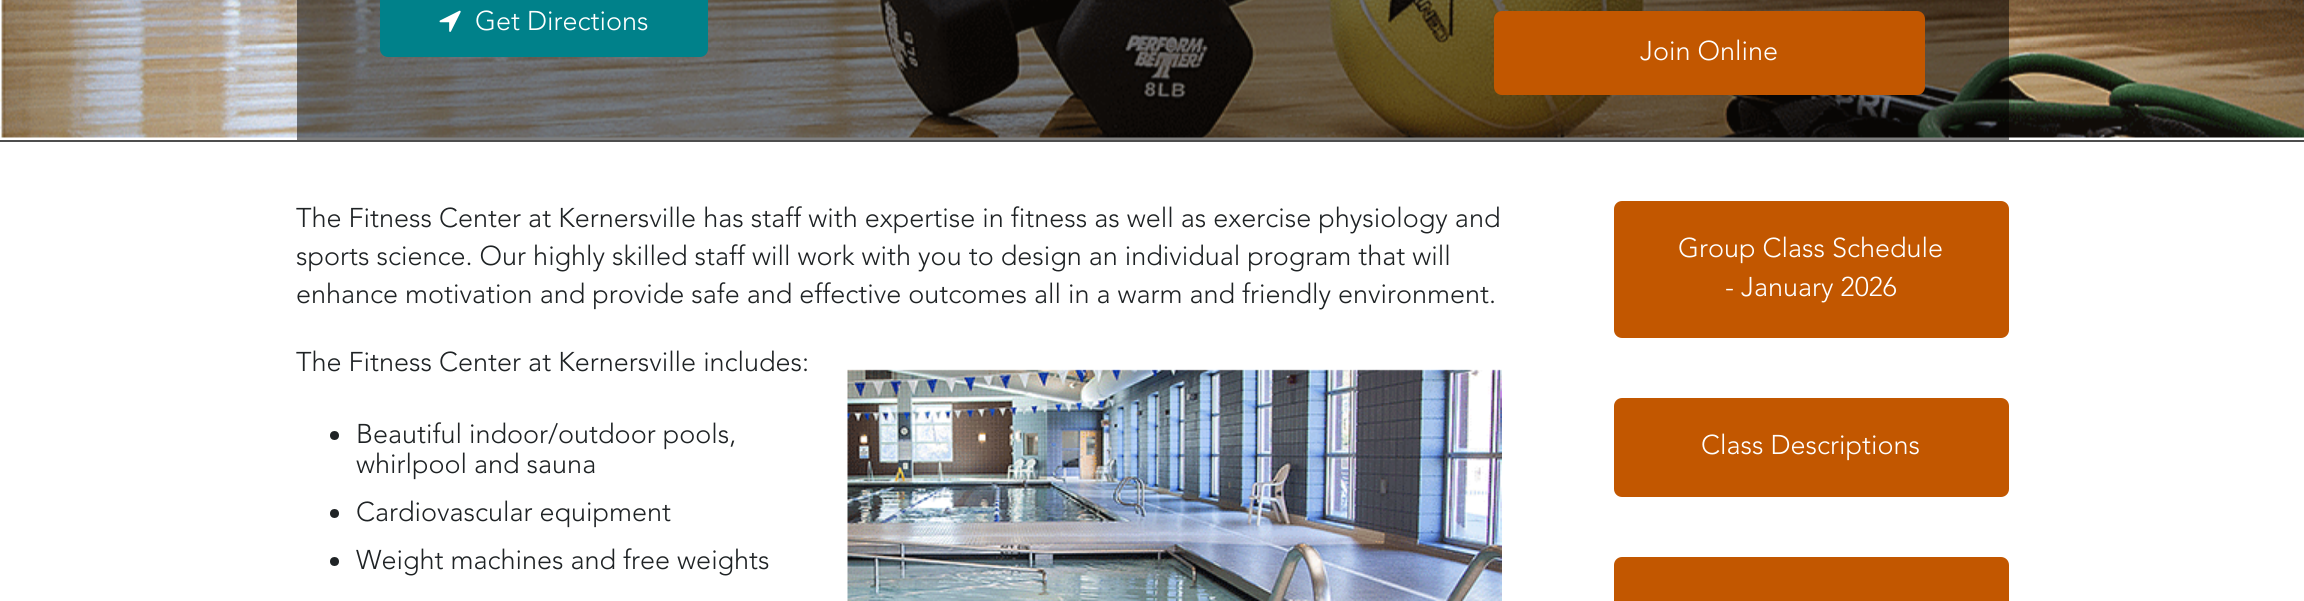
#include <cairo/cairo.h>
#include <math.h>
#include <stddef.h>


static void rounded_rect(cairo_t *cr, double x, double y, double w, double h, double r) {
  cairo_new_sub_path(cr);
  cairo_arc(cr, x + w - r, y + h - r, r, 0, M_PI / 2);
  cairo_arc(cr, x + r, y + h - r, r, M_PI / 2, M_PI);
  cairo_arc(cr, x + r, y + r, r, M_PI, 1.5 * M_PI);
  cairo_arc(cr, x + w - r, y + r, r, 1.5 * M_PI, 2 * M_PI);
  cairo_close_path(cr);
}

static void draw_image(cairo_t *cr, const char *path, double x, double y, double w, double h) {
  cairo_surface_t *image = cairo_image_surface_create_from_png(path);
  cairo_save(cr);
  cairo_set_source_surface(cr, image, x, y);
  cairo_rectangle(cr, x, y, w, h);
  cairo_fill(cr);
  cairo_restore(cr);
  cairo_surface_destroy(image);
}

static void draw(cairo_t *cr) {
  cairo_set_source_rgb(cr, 1, 1, 1);
  cairo_paint(cr);
  draw_image(cr, "images/1.png", 0, 0, 2304, 138);
  cairo_set_source_rgba(cr, 0, 0, 0, 0.5);
  cairo_rectangle(cr, 297, 0, 1712, 140);
  cairo_fill(cr);
  cairo_set_source_rgb(cr, 0, 129 / 255.0, 138 / 255.0);
  rounded_rect(cr, 380, -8, 328, 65, 8);
  cairo_fill(cr);
  draw_image(cr, "images/2.png", 439, 10, 22, 22);
  cairo_set_source_rgb(cr, 194 / 255.0, 87 / 255.0, 0);
  rounded_rect(cr, 1494, 11, 431, 84, 8);
  cairo_fill(cr);
  cairo_set_source_rgb(cr, 78 / 255.0, 78 / 255.0, 78 / 255.0);
  cairo_rectangle(cr, 0, 140, 2304, 2);
  cairo_fill(cr);
  draw_image(cr, "images/3.png", 847, 369, 655, 232);
  cairo_set_source_rgb(cr, 31 / 255.0, 35 / 255.0, 37 / 255.0);
  cairo_arc(cr, 334.5, 435.5, 4.5, 0, 2 * M_PI);
  cairo_fill(cr);
  cairo_arc(cr, 334.5, 513.5, 4.5, 0, 2 * M_PI);
  cairo_fill(cr);
  cairo_arc(cr, 334.5, 561.5, 4.5, 0, 2 * M_PI);
  cairo_fill(cr);
  cairo_set_source_rgb(cr, 194 / 255.0, 87 / 255.0, 0);
  rounded_rect(cr, 1614, 201, 395, 137, 8);
  cairo_fill(cr);
  rounded_rect(cr, 1614, 398, 395, 99, 8);
  cairo_fill(cr);
  rounded_rect(cr, 1614, 557, 395, 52, 8);
  cairo_fill(cr);
  cairo_select_font_face(cr, "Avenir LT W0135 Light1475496 Light", CAIRO_FONT_SLANT_NORMAL, CAIRO_FONT_WEIGHT_NORMAL);
  cairo_set_font_size(cr, 27);
  cairo_set_source_rgb(cr, 1, 1, 1);
  cairo_move_to(cr, 475, 30);
  cairo_show_text(cr, "Get Directions");
  cairo_move_to(cr, 1640, 60);
  cairo_show_text(cr, "Join Online");
  cairo_set_source_rgb(cr, 31 / 255.0, 35 / 255.0, 37 / 255.0);
  cairo_move_to(cr, 296, 227);
  cairo_show_text(cr, "The Fitness Center at Kernersville has staff with expertise in fitness as well as exercise physiology and");
  cairo_move_to(cr, 296, 265);
  cairo_show_text(cr, "sports science. Our highly skilled staff will work with you to design an individual program that will");
  cairo_move_to(cr, 296, 303);
  cairo_show_text(cr, "enhance motivation and provide safe and effective outcomes all in a warm and friendly environment.");
  cairo_move_to(cr, 296, 371);
  cairo_show_text(cr, "The Fitness Center at Kernersville includes:");
  cairo_move_to(cr, 356, 443);
  cairo_show_text(cr, "Beautiful indoor/outdoor pools,");
  cairo_move_to(cr, 356, 473);
  cairo_show_text(cr, "whirlpool and sauna");
  cairo_move_to(cr, 356, 521);
  cairo_show_text(cr, "Cardiovascular equipment");
  cairo_move_to(cr, 356, 569);
  cairo_show_text(cr, "Weight machines and free weights");
  cairo_set_source_rgb(cr, 1, 1, 1);
  cairo_move_to(cr, 1678, 257);
  cairo_show_text(cr, "Group Class Schedule");
  cairo_move_to(cr, 1725, 296);
  cairo_show_text(cr, "- January 2026");
  cairo_move_to(cr, 1701, 454);
  cairo_show_text(cr, "Class Descriptions");
}

int main(void) {
  cairo_surface_t *surface = cairo_image_surface_create(CAIRO_FORMAT_RGB24, 2304, 601);
  cairo_t *cr = cairo_create(surface);
  cairo_font_options_t *options = cairo_font_options_create();
  cairo_font_options_set_hint_metrics(options, CAIRO_HINT_METRICS_OFF);
  cairo_font_options_set_hint_style(options, CAIRO_HINT_STYLE_NONE);
  cairo_set_font_options(cr, options);
  cairo_set_miter_limit(cr, 4);
  draw(cr);
  cairo_surface_write_to_png(surface, "out.png");
  cairo_font_options_destroy(options);
  cairo_destroy(cr);
  cairo_surface_destroy(surface);
  return 0;
}
